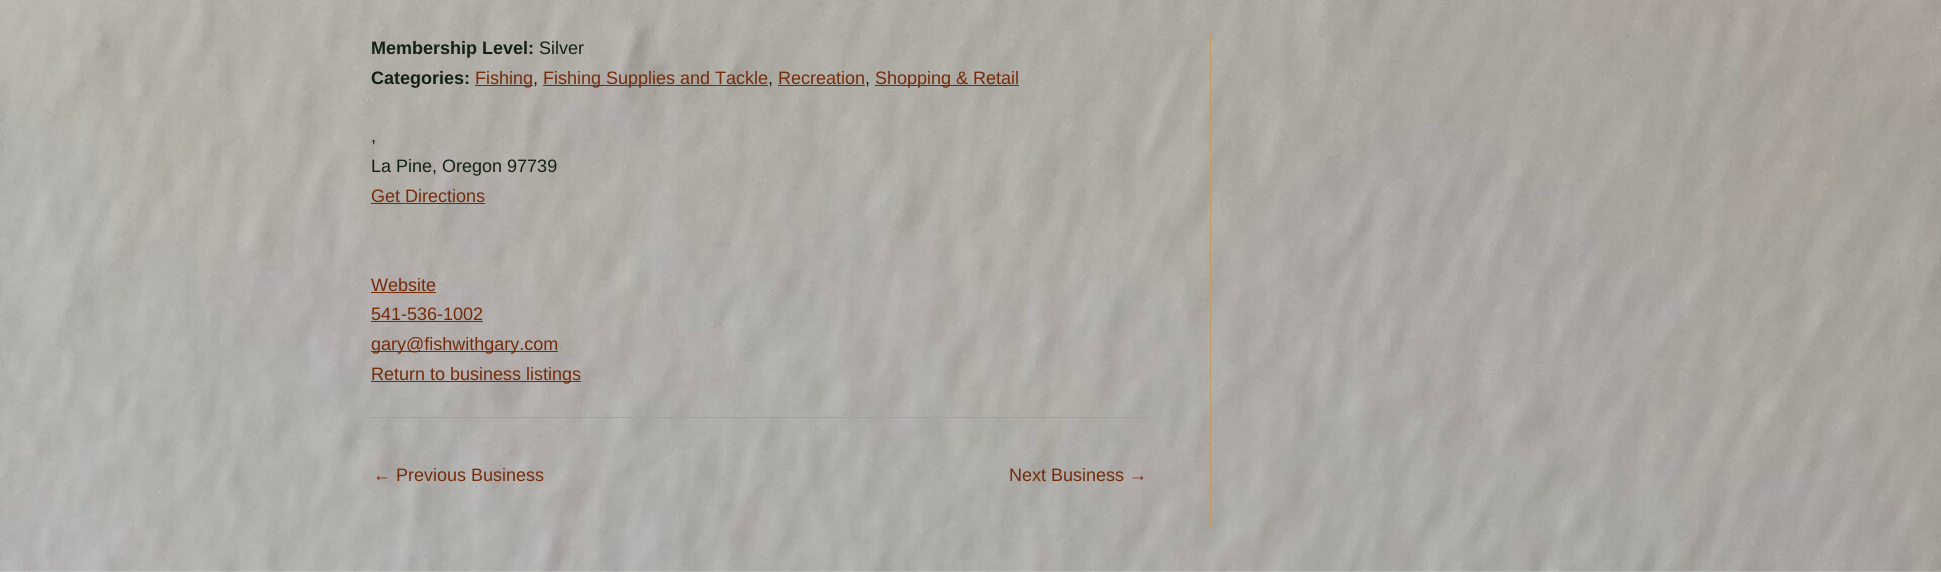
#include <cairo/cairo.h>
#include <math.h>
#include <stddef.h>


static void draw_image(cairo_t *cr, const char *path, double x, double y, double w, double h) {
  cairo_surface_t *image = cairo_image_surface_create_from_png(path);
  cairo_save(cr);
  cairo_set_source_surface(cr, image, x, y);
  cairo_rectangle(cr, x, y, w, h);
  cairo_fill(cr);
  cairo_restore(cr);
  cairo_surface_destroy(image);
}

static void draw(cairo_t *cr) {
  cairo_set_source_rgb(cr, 1, 1, 1);
  cairo_paint(cr);
  draw_image(cr, "images/1.png", 0, 0, 1941, 572);
  cairo_set_source_rgb(cr, 115 / 255.0, 43 / 255.0, 10 / 255.0);
  cairo_rectangle(cr, 475, 85, 58, 1);
  cairo_fill(cr);
  cairo_rectangle(cr, 543, 85, 225, 1);
  cairo_fill(cr);
  cairo_rectangle(cr, 778, 85, 87, 1);
  cairo_fill(cr);
  cairo_rectangle(cr, 875, 85, 144, 1);
  cairo_fill(cr);
  cairo_rectangle(cr, 371, 203, 114, 1);
  cairo_fill(cr);
  cairo_rectangle(cr, 371, 292, 65, 1);
  cairo_fill(cr);
  cairo_rectangle(cr, 371, 321, 112, 1);
  cairo_fill(cr);
  cairo_rectangle(cr, 371, 351, 187, 1);
  cairo_fill(cr);
  cairo_rectangle(cr, 371, 381, 210, 1);
  cairo_fill(cr);
  cairo_set_source_rgb(cr, 195 / 255.0, 154 / 255.0, 95 / 255.0);
  cairo_rectangle(cr, 371, 417, 779, 1);
  cairo_fill(cr);
  cairo_rectangle(cr, 1210, 34, 1, 493);
  cairo_fill(cr);
  cairo_select_font_face(cr, "Liberation Sans", CAIRO_FONT_SLANT_NORMAL, CAIRO_FONT_WEIGHT_BOLD);
  cairo_set_font_size(cr, 18);
  cairo_set_source_rgb(cr, 20 / 255.0, 32 / 255.0, 20 / 255.0);
  cairo_move_to(cr, 371, 54);
  cairo_show_text(cr, "Membership Level:");
  cairo_select_font_face(cr, "Liberation Sans", CAIRO_FONT_SLANT_NORMAL, CAIRO_FONT_WEIGHT_NORMAL);
  cairo_move_to(cr, 539, 54);
  cairo_show_text(cr, "Silver");
  cairo_select_font_face(cr, "Liberation Sans", CAIRO_FONT_SLANT_NORMAL, CAIRO_FONT_WEIGHT_BOLD);
  cairo_move_to(cr, 371, 84);
  cairo_show_text(cr, "Categories:");
  cairo_select_font_face(cr, "Liberation Sans", CAIRO_FONT_SLANT_NORMAL, CAIRO_FONT_WEIGHT_NORMAL);
  cairo_set_source_rgb(cr, 115 / 255.0, 43 / 255.0, 10 / 255.0);
  cairo_move_to(cr, 475, 84);
  cairo_show_text(cr, "Fishing");
  cairo_set_source_rgb(cr, 20 / 255.0, 32 / 255.0, 20 / 255.0);
  cairo_move_to(cr, 533, 84);
  cairo_show_text(cr, ",");
  cairo_set_source_rgb(cr, 115 / 255.0, 43 / 255.0, 10 / 255.0);
  cairo_move_to(cr, 543, 84);
  cairo_show_text(cr, "Fishing Supplies and Tackle");
  cairo_set_source_rgb(cr, 20 / 255.0, 32 / 255.0, 20 / 255.0);
  cairo_move_to(cr, 768, 84);
  cairo_show_text(cr, ",");
  cairo_set_source_rgb(cr, 115 / 255.0, 43 / 255.0, 10 / 255.0);
  cairo_move_to(cr, 778, 84);
  cairo_show_text(cr, "Recreation");
  cairo_set_source_rgb(cr, 20 / 255.0, 32 / 255.0, 20 / 255.0);
  cairo_move_to(cr, 865, 84);
  cairo_show_text(cr, ",");
  cairo_set_source_rgb(cr, 115 / 255.0, 43 / 255.0, 10 / 255.0);
  cairo_move_to(cr, 875, 84);
  cairo_show_text(cr, "Shopping & Retail");
  cairo_set_source_rgb(cr, 20 / 255.0, 32 / 255.0, 20 / 255.0);
  cairo_move_to(cr, 371, 142);
  cairo_show_text(cr, ",");
  cairo_move_to(cr, 371, 172);
  cairo_show_text(cr, "La Pine, Oregon 97739");
  cairo_set_source_rgb(cr, 115 / 255.0, 43 / 255.0, 10 / 255.0);
  cairo_move_to(cr, 371, 202);
  cairo_show_text(cr, "Get Directions");
  cairo_move_to(cr, 371, 291);
  cairo_show_text(cr, "Website");
  cairo_move_to(cr, 371, 320);
  cairo_show_text(cr, "541-536-1002");
  cairo_move_to(cr, 371, 350);
  cairo_show_text(cr, "gary@fishwithgary.com");
  cairo_move_to(cr, 371, 380);
  cairo_show_text(cr, "Return to business listings");
  cairo_move_to(cr, 373, 481);
  cairo_show_text(cr, "← Previous Business");
  cairo_move_to(cr, 1009, 481);
  cairo_show_text(cr, "Next Business →");
}

int main(void) {
  cairo_surface_t *surface = cairo_image_surface_create(CAIRO_FORMAT_RGB24, 1941, 572);
  cairo_t *cr = cairo_create(surface);
  cairo_font_options_t *options = cairo_font_options_create();
  cairo_font_options_set_hint_metrics(options, CAIRO_HINT_METRICS_OFF);
  cairo_font_options_set_hint_style(options, CAIRO_HINT_STYLE_NONE);
  cairo_set_font_options(cr, options);
  cairo_set_miter_limit(cr, 4);
  draw(cr);
  cairo_surface_write_to_png(surface, "out.png");
  cairo_font_options_destroy(options);
  cairo_destroy(cr);
  cairo_surface_destroy(surface);
  return 0;
}
